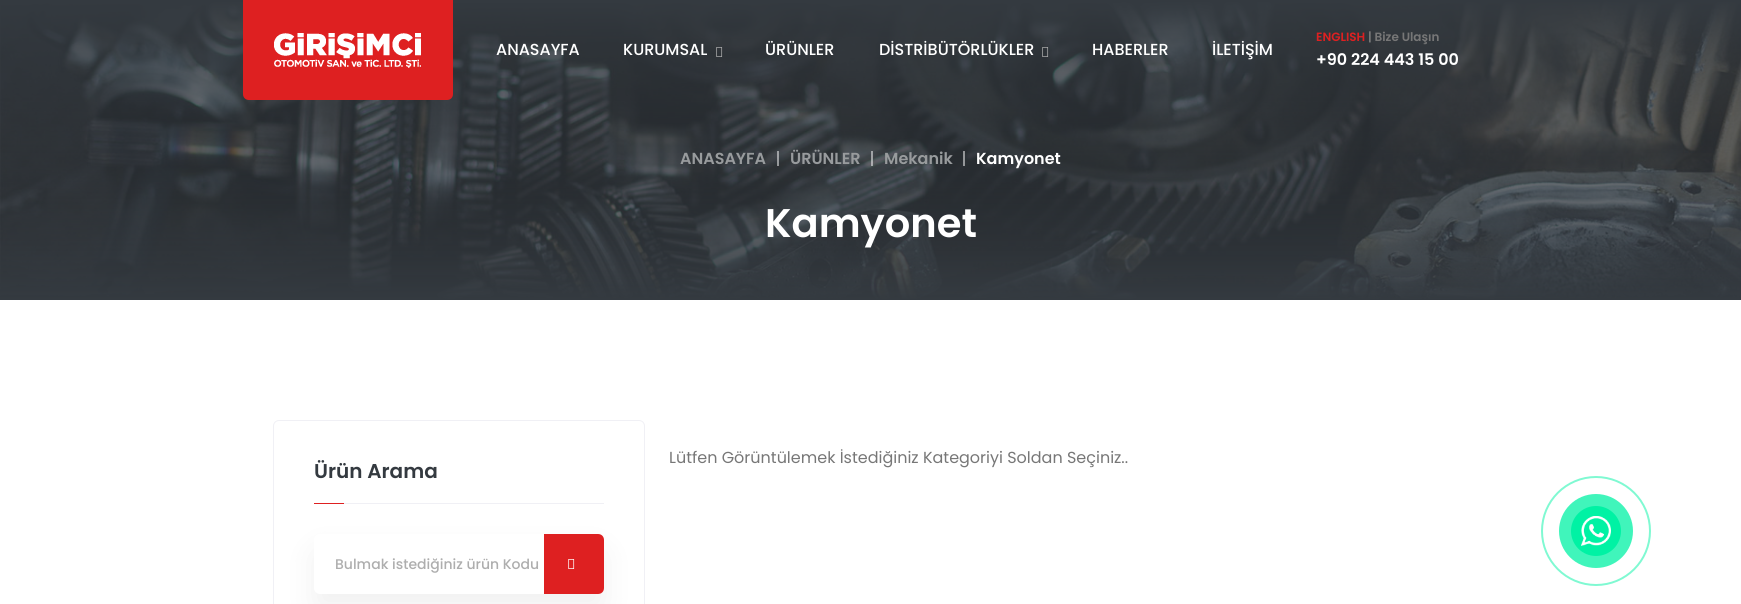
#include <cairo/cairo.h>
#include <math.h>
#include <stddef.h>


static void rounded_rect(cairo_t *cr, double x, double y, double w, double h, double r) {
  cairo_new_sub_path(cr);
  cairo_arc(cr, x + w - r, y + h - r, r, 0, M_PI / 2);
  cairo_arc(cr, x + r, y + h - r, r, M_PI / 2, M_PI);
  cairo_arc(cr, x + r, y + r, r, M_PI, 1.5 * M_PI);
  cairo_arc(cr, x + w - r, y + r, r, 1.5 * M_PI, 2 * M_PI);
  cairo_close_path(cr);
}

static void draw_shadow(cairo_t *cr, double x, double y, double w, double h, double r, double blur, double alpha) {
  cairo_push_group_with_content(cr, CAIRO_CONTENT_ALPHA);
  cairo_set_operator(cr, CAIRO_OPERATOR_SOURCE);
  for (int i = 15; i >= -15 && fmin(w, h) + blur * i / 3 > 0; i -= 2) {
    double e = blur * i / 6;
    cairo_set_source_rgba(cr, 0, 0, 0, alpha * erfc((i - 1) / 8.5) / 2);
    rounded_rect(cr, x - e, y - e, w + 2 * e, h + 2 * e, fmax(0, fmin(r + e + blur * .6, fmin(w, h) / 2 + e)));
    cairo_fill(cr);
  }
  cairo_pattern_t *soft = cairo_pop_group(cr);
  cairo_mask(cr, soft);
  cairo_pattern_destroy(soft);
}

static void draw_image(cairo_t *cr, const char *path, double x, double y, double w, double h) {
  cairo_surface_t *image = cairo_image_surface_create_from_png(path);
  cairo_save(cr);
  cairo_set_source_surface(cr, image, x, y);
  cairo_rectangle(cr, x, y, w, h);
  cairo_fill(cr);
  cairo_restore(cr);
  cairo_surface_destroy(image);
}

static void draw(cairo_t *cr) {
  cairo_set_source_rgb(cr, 1, 1, 1);
  cairo_paint(cr);
  draw_image(cr, "images/4.png", 0, 0, 1741, 300);
  cairo_set_source_rgb(cr, 222 / 255.0, 32 / 255.0, 33 / 255.0);
  cairo_new_path(cr);
  cairo_move_to(cr, 243, 0);
  cairo_line_to(cr, 453, 0);
  cairo_line_to(cr, 453, 94);
  cairo_curve_to(cr, 453, 97.5, 450.5, 100, 447, 100);
  cairo_line_to(cr, 249, 100);
  cairo_curve_to(cr, 245.5, 100, 243, 97.5, 243, 94);
  cairo_close_path(cr);
  cairo_fill(cr);
  draw_image(cr, "images/1.png", 274, 33, 147, 35);
  draw_image(cr, "images/2.png", 716, 47, 7, 10);
  draw_image(cr, "images/3.png", 1042, 47, 7, 10);
  cairo_set_source_rgba(cr, 1, 1, 1, 0.5);
  cairo_rectangle(cr, 777, 151, 2, 15);
  cairo_fill(cr);
  cairo_rectangle(cr, 871, 151, 2, 15);
  cairo_fill(cr);
  cairo_rectangle(cr, 963, 151, 2, 15);
  cairo_fill(cr);
  rounded_rect(cr, 273.5, 420.5, 371, 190, 5.5);
  cairo_set_source_rgb(cr, 240 / 255.0, 240 / 255.0, 245 / 255.0);
  cairo_set_line_width(cr, 1);
  cairo_stroke(cr);
  cairo_rectangle(cr, 344, 503, 260, 1);
  cairo_fill(cr);
  cairo_set_source_rgb(cr, 222 / 255.0, 32 / 255.0, 33 / 255.0);
  cairo_rectangle(cr, 314, 503, 30, 1);
  cairo_fill(cr);
  cairo_set_source_rgb(cr, 0, 0, 0);
  draw_shadow(cr, 314, 550, 290, 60, 6, 16, 0.06);
  cairo_set_source_rgb(cr, 1, 1, 1);
  rounded_rect(cr, 314, 534, 290, 60, 6);
  cairo_fill(cr);
  cairo_set_source_rgb(cr, 222 / 255.0, 32 / 255.0, 33 / 255.0);
  cairo_new_path(cr);
  cairo_move_to(cr, 544, 534);
  cairo_line_to(cr, 598, 534);
  cairo_curve_to(cr, 601.5, 534, 604, 536.5, 604, 540);
  cairo_line_to(cr, 604, 588);
  cairo_curve_to(cr, 604, 591.5, 601.5, 594, 598, 594);
  cairo_line_to(cr, 544, 594);
  cairo_close_path(cr);
  cairo_fill(cr);
  draw_image(cr, "images/5.png", 568, 559, 7, 10);
  cairo_arc(cr, 1596, 531, 54, 0, 2 * M_PI);
  cairo_set_source_rgb(cr, 128 / 255.0, 249 / 255.0, 210 / 255.0);
  cairo_set_line_width(cr, 2);
  cairo_stroke(cr);
  cairo_set_source_rgb(cr, 64 / 255.0, 245 / 255.0, 187 / 255.0);
  cairo_arc(cr, 1596, 531, 37, 0, 2 * M_PI);
  cairo_fill(cr);
  cairo_set_source_rgb(cr, 0, 242 / 255.0, 164 / 255.0);
  cairo_arc(cr, 1596, 531, 25, 0, 2 * M_PI);
  cairo_fill(cr);
  draw_image(cr, "images/6.png", 1581, 516, 30, 30);
  cairo_select_font_face(cr, "Poppins Medium", CAIRO_FONT_SLANT_NORMAL, CAIRO_FONT_WEIGHT_NORMAL);
  cairo_set_font_size(cr, 16);
  cairo_set_source_rgb(cr, 1, 1, 1);
  cairo_move_to(cr, 496, 55);
  cairo_show_text(cr, "ANASAYFA");
  cairo_move_to(cr, 623, 55);
  cairo_show_text(cr, "KURUMSAL");
  cairo_move_to(cr, 765, 55);
  cairo_show_text(cr, "ÜRÜNLER");
  cairo_move_to(cr, 879, 55);
  cairo_show_text(cr, "DİSTRİBÜTÖRLÜKLER");
  cairo_move_to(cr, 1092, 55);
  cairo_show_text(cr, "HABERLER");
  cairo_move_to(cr, 1212, 55);
  cairo_show_text(cr, "İLETİŞİM");
  cairo_select_font_face(cr, "Poppins SemiBold", CAIRO_FONT_SLANT_NORMAL, CAIRO_FONT_WEIGHT_NORMAL);
  cairo_set_font_size(cr, 12);
  cairo_set_source_rgb(cr, 222 / 255.0, 32 / 255.0, 33 / 255.0);
  cairo_move_to(cr, 1316, 41);
  cairo_show_text(cr, "ENGLISH");
  cairo_set_source_rgb(cr, 119 / 255.0, 119 / 255.0, 119 / 255.0);
  cairo_move_to(cr, 1368, 41);
  cairo_show_text(cr, "| Bize Ulaşın");
  cairo_set_font_size(cr, 16);
  cairo_set_source_rgb(cr, 1, 1, 1);
  cairo_move_to(cr, 1316, 65);
  cairo_show_text(cr, "+90 224 443 15 00");
  cairo_set_source_rgb(cr, 152 / 255.0, 155 / 255.0, 157 / 255.0);
  cairo_move_to(cr, 680, 164);
  cairo_show_text(cr, "ANASAYFA");
  cairo_move_to(cr, 790, 164);
  cairo_show_text(cr, "ÜRÜNLER");
  cairo_move_to(cr, 884, 164);
  cairo_show_text(cr, "Mekanik");
  cairo_set_source_rgb(cr, 1, 1, 1);
  cairo_move_to(cr, 976, 164);
  cairo_show_text(cr, "Kamyonet");
  cairo_set_font_size(cr, 40);
  cairo_move_to(cr, 765, 237);
  cairo_show_text(cr, "Kamyonet");
  cairo_set_font_size(cr, 20);
  cairo_set_source_rgb(cr, 52 / 255.0, 58 / 255.0, 64 / 255.0);
  cairo_move_to(cr, 314, 478);
  cairo_show_text(cr, "Ürün Arama");
  cairo_select_font_face(cr, "Poppins Medium", CAIRO_FONT_SLANT_NORMAL, CAIRO_FONT_WEIGHT_NORMAL);
  cairo_set_font_size(cr, 14);
  cairo_set_source_rgb(cr, 174 / 255.0, 174 / 255.0, 174 / 255.0);
  cairo_move_to(cr, 335, 569);
  cairo_show_text(cr, "Bulmak istediğiniz ürün Kodu");
  cairo_select_font_face(cr, "Poppins", CAIRO_FONT_SLANT_NORMAL, CAIRO_FONT_WEIGHT_NORMAL);
  cairo_set_font_size(cr, 16);
  cairo_set_source_rgb(cr, 119 / 255.0, 119 / 255.0, 119 / 255.0);
  cairo_move_to(cr, 669, 463);
  cairo_show_text(cr, "Lütfen Görüntülemek İstediğiniz Kategoriyi Soldan Seçiniz..");
}

int main(void) {
  cairo_surface_t *surface = cairo_image_surface_create(CAIRO_FORMAT_RGB24, 1741, 604);
  cairo_t *cr = cairo_create(surface);
  cairo_font_options_t *options = cairo_font_options_create();
  cairo_font_options_set_hint_metrics(options, CAIRO_HINT_METRICS_OFF);
  cairo_font_options_set_hint_style(options, CAIRO_HINT_STYLE_NONE);
  cairo_set_font_options(cr, options);
  cairo_set_miter_limit(cr, 4);
  draw(cr);
  cairo_surface_write_to_png(surface, "out.png");
  cairo_font_options_destroy(options);
  cairo_destroy(cr);
  cairo_surface_destroy(surface);
  return 0;
}
